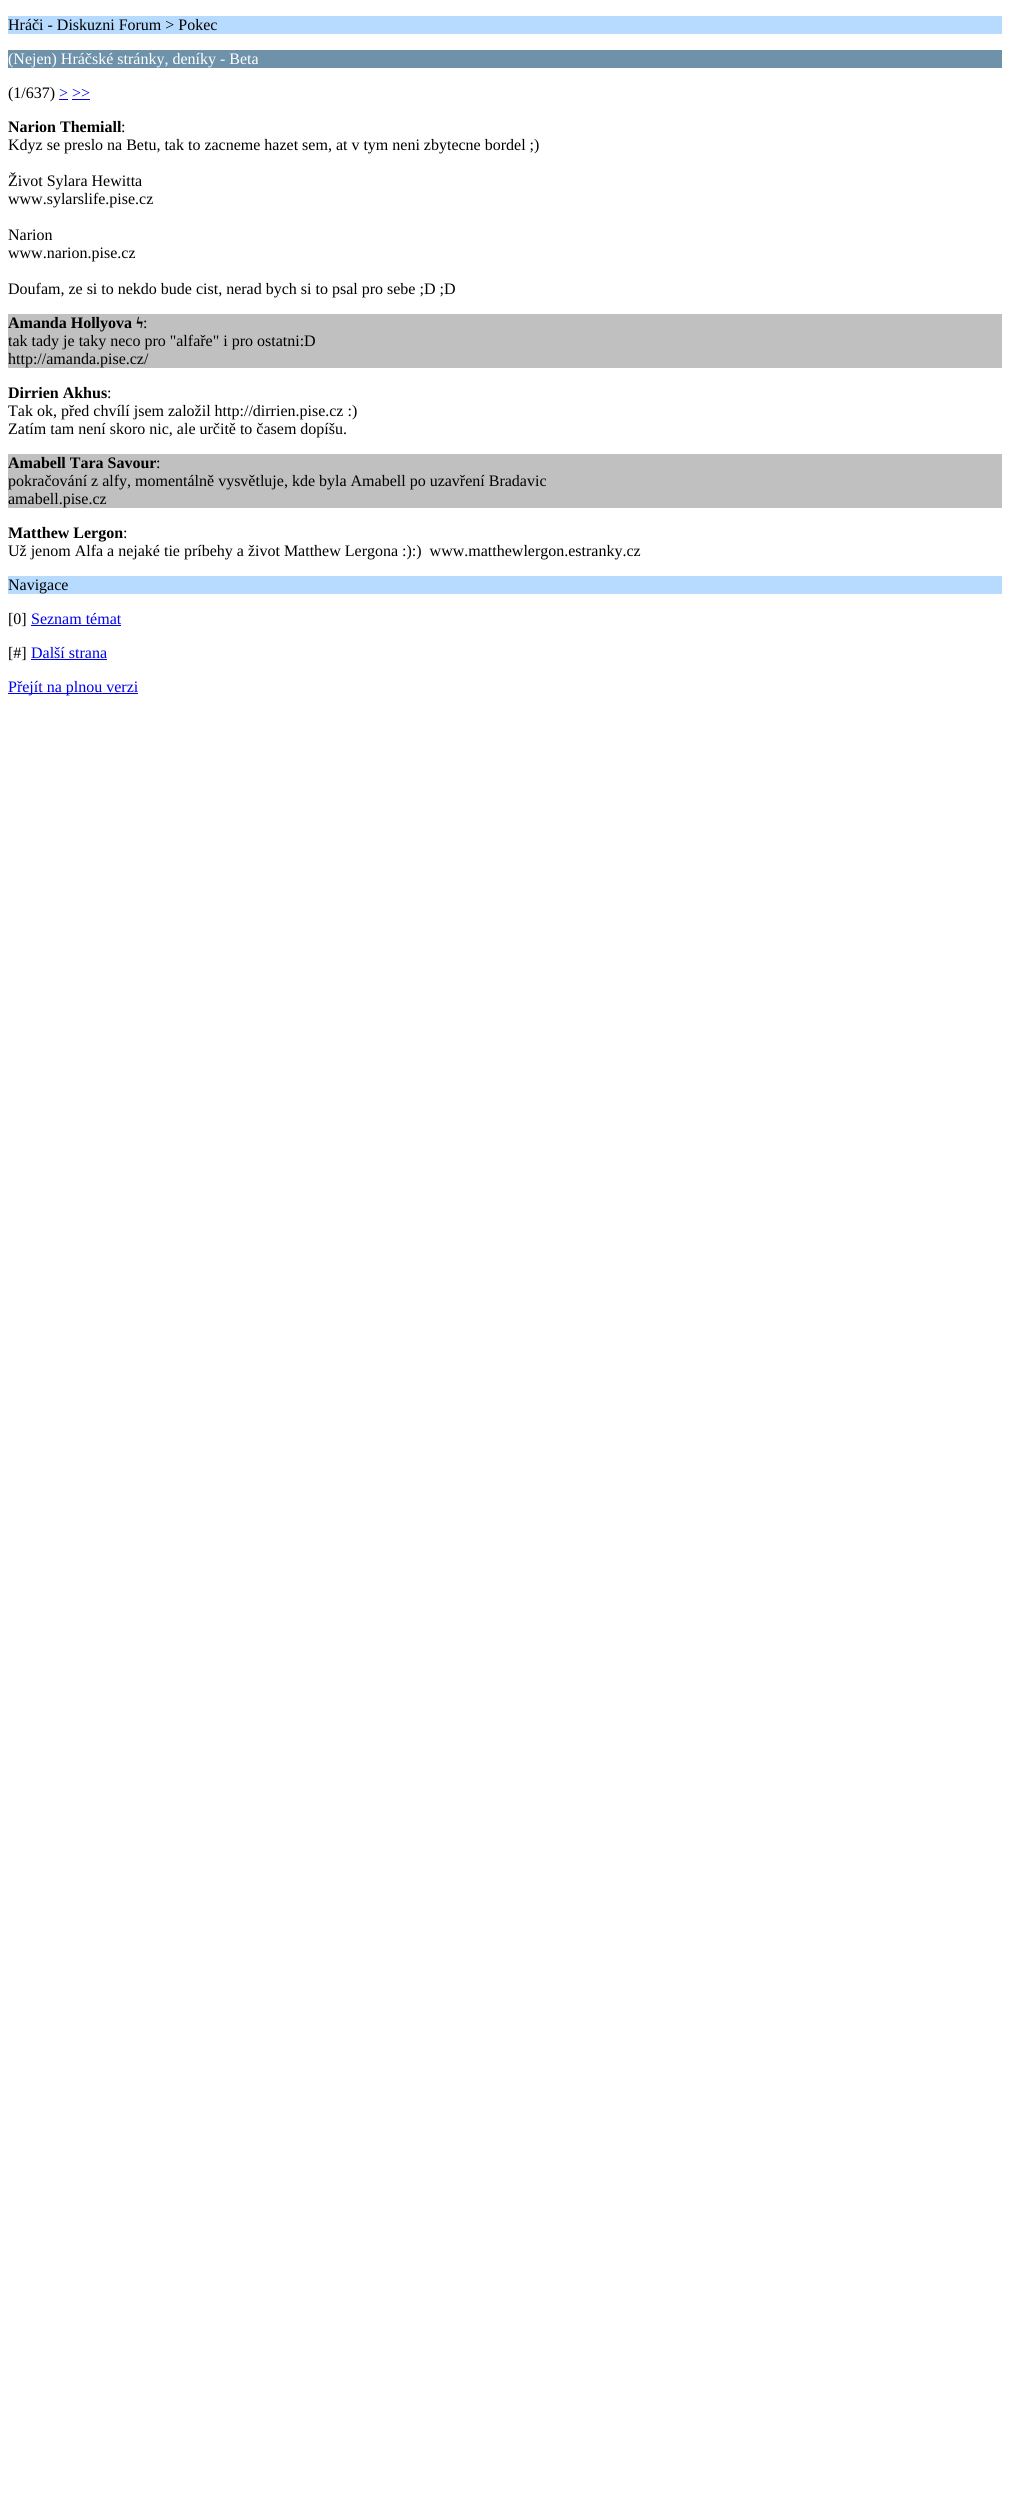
#include <cairo/cairo.h>
#include <math.h>
#include <stddef.h>


static void draw(cairo_t *cr) {
  cairo_set_source_rgb(cr, 1, 1, 1);
  cairo_paint(cr);
  cairo_set_source_rgb(cr, 182 / 255.0, 219 / 255.0, 1);
  cairo_rectangle(cr, 8, 16, 994, 18);
  cairo_fill(cr);
  cairo_set_source_rgb(cr, 109 / 255.0, 146 / 255.0, 170 / 255.0);
  cairo_rectangle(cr, 8, 50, 994, 18);
  cairo_fill(cr);
  cairo_set_source_rgb(cr, 0, 0, 238 / 255.0);
  cairo_rectangle(cr, 59, 99, 9, 1);
  cairo_fill(cr);
  cairo_rectangle(cr, 72, 99, 18, 1);
  cairo_fill(cr);
  cairo_set_source_rgb(cr, 192 / 255.0, 192 / 255.0, 192 / 255.0);
  cairo_rectangle(cr, 8, 314, 994, 54);
  cairo_fill(cr);
  cairo_rectangle(cr, 8, 454, 994, 54);
  cairo_fill(cr);
  cairo_set_source_rgb(cr, 182 / 255.0, 219 / 255.0, 1);
  cairo_rectangle(cr, 8, 576, 994, 18);
  cairo_fill(cr);
  cairo_set_source_rgb(cr, 0, 0, 238 / 255.0);
  cairo_rectangle(cr, 31, 625, 90, 1);
  cairo_fill(cr);
  cairo_rectangle(cr, 31, 659, 76, 1);
  cairo_fill(cr);
  cairo_rectangle(cr, 8, 693, 130, 1);
  cairo_fill(cr);
  cairo_select_font_face(cr, "Liberation Serif", CAIRO_FONT_SLANT_NORMAL, CAIRO_FONT_WEIGHT_NORMAL);
  cairo_set_font_size(cr, 16);
  cairo_set_source_rgb(cr, 0, 0, 0);
  cairo_move_to(cr, 8, 30);
  cairo_show_text(cr, "Hráči - Diskuzni Forum > Pokec");
  cairo_set_source_rgb(cr, 1, 1, 1);
  cairo_move_to(cr, 8, 64);
  cairo_show_text(cr, "(Nejen) Hráčské stránky, deníky - Beta");
  cairo_set_source_rgb(cr, 0, 0, 0);
  cairo_move_to(cr, 8, 98);
  cairo_show_text(cr, "(1/637)");
  cairo_set_source_rgb(cr, 0, 0, 238 / 255.0);
  cairo_move_to(cr, 59, 98);
  cairo_show_text(cr, "> >>");
  cairo_select_font_face(cr, "Liberation Serif", CAIRO_FONT_SLANT_NORMAL, CAIRO_FONT_WEIGHT_BOLD);
  cairo_set_source_rgb(cr, 0, 0, 0);
  cairo_move_to(cr, 8, 132);
  cairo_show_text(cr, "Narion Themiall");
  cairo_select_font_face(cr, "Liberation Serif", CAIRO_FONT_SLANT_NORMAL, CAIRO_FONT_WEIGHT_NORMAL);
  cairo_move_to(cr, 121, 132);
  cairo_show_text(cr, ":");
  cairo_move_to(cr, 8, 150);
  cairo_show_text(cr, "Kdyz se preslo na Betu, tak to zacneme hazet sem, at v tym neni zbytecne bordel ;)");
  cairo_move_to(cr, 8, 186);
  cairo_show_text(cr, "Život Sylara Hewitta");
  cairo_move_to(cr, 8, 204);
  cairo_show_text(cr, "www.sylarslife.pise.cz");
  cairo_move_to(cr, 8, 240);
  cairo_show_text(cr, "Narion");
  cairo_move_to(cr, 8, 258);
  cairo_show_text(cr, "www.narion.pise.cz");
  cairo_move_to(cr, 8, 294);
  cairo_show_text(cr, "Doufam, ze si to nekdo bude cist, nerad bych si to psal pro sebe ;D ;D");
  cairo_select_font_face(cr, "Liberation Serif", CAIRO_FONT_SLANT_NORMAL, CAIRO_FONT_WEIGHT_BOLD);
  cairo_move_to(cr, 8, 328);
  cairo_show_text(cr, "Amanda Hollyova ϟ");
  cairo_select_font_face(cr, "Liberation Serif", CAIRO_FONT_SLANT_NORMAL, CAIRO_FONT_WEIGHT_NORMAL);
  cairo_move_to(cr, 143, 328);
  cairo_show_text(cr, ":");
  cairo_move_to(cr, 8, 346);
  cairo_show_text(cr, "tak tady je taky neco pro \"alfaře\" i pro ostatni:D");
  cairo_move_to(cr, 8, 364);
  cairo_show_text(cr, "http://amanda.pise.cz/");
  cairo_select_font_face(cr, "Liberation Serif", CAIRO_FONT_SLANT_NORMAL, CAIRO_FONT_WEIGHT_BOLD);
  cairo_move_to(cr, 8, 398);
  cairo_show_text(cr, "Dirrien Akhus");
  cairo_select_font_face(cr, "Liberation Serif", CAIRO_FONT_SLANT_NORMAL, CAIRO_FONT_WEIGHT_NORMAL);
  cairo_move_to(cr, 107, 398);
  cairo_show_text(cr, ":");
  cairo_move_to(cr, 8, 416);
  cairo_show_text(cr, "Tak ok, před chvílí jsem založil http://dirrien.pise.cz :)");
  cairo_move_to(cr, 8, 434);
  cairo_show_text(cr, "Zatím tam není skoro nic, ale určitě to časem dopíšu.");
  cairo_select_font_face(cr, "Liberation Serif", CAIRO_FONT_SLANT_NORMAL, CAIRO_FONT_WEIGHT_BOLD);
  cairo_move_to(cr, 8, 468);
  cairo_show_text(cr, "Amabell Tara Savour");
  cairo_select_font_face(cr, "Liberation Serif", CAIRO_FONT_SLANT_NORMAL, CAIRO_FONT_WEIGHT_NORMAL);
  cairo_move_to(cr, 156, 468);
  cairo_show_text(cr, ":");
  cairo_move_to(cr, 8, 486);
  cairo_show_text(cr, "pokračování z alfy, momentálně vysvětluje, kde byla Amabell po uzavření Bradavic");
  cairo_move_to(cr, 8, 504);
  cairo_show_text(cr, "amabell.pise.cz");
  cairo_select_font_face(cr, "Liberation Serif", CAIRO_FONT_SLANT_NORMAL, CAIRO_FONT_WEIGHT_BOLD);
  cairo_move_to(cr, 8, 538);
  cairo_show_text(cr, "Matthew Lergon");
  cairo_select_font_face(cr, "Liberation Serif", CAIRO_FONT_SLANT_NORMAL, CAIRO_FONT_WEIGHT_NORMAL);
  cairo_move_to(cr, 123, 538);
  cairo_show_text(cr, ":");
  cairo_move_to(cr, 8, 556);
  cairo_show_text(cr, "Už jenom Alfa a nejaké tie príbehy a život Matthew Lergona :):)  www.matthewlergon.estranky.cz");
  cairo_move_to(cr, 8, 590);
  cairo_show_text(cr, "Navigace");
  cairo_move_to(cr, 8, 624);
  cairo_show_text(cr, "[0]");
  cairo_set_source_rgb(cr, 0, 0, 238 / 255.0);
  cairo_move_to(cr, 31, 624);
  cairo_show_text(cr, "Seznam témat");
  cairo_set_source_rgb(cr, 0, 0, 0);
  cairo_move_to(cr, 8, 658);
  cairo_show_text(cr, "[#]");
  cairo_set_source_rgb(cr, 0, 0, 238 / 255.0);
  cairo_move_to(cr, 31, 658);
  cairo_show_text(cr, "Další strana");
  cairo_move_to(cr, 8, 692);
  cairo_show_text(cr, "Přejít na plnou verzi");
}

int main(void) {
  cairo_surface_t *surface = cairo_image_surface_create(CAIRO_FORMAT_RGB24, 1010, 2520);
  cairo_t *cr = cairo_create(surface);
  cairo_font_options_t *options = cairo_font_options_create();
  cairo_font_options_set_hint_metrics(options, CAIRO_HINT_METRICS_OFF);
  cairo_font_options_set_hint_style(options, CAIRO_HINT_STYLE_NONE);
  cairo_set_font_options(cr, options);
  cairo_set_miter_limit(cr, 4);
  draw(cr);
  cairo_surface_write_to_png(surface, "out.png");
  cairo_font_options_destroy(options);
  cairo_destroy(cr);
  cairo_surface_destroy(surface);
  return 0;
}
